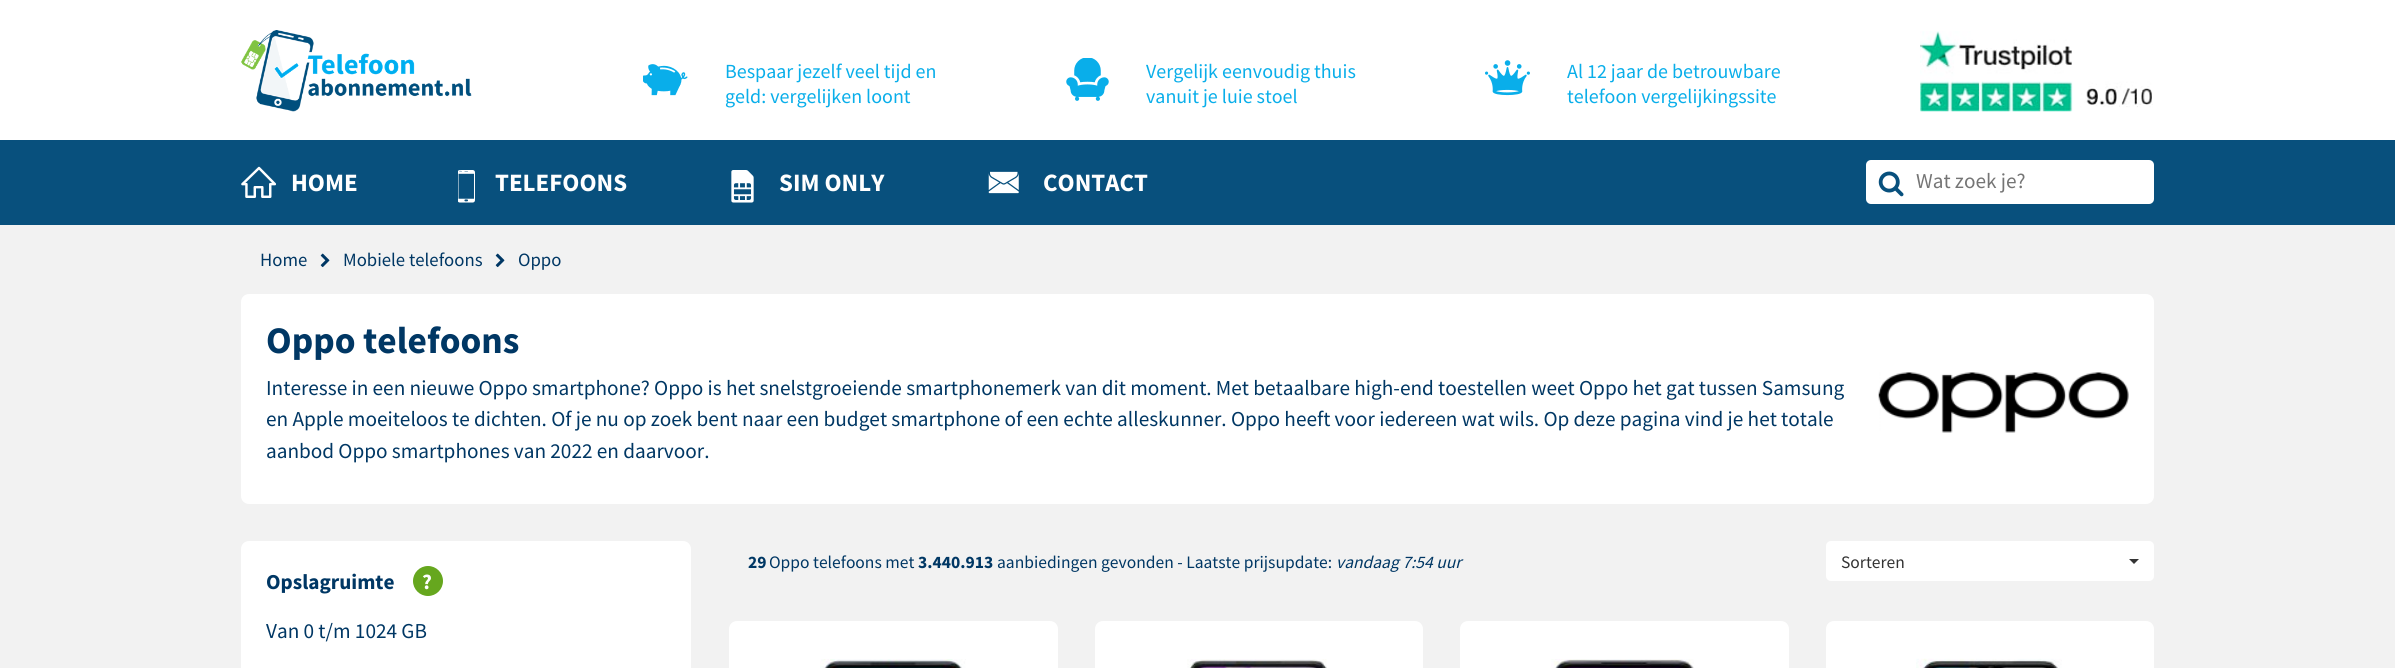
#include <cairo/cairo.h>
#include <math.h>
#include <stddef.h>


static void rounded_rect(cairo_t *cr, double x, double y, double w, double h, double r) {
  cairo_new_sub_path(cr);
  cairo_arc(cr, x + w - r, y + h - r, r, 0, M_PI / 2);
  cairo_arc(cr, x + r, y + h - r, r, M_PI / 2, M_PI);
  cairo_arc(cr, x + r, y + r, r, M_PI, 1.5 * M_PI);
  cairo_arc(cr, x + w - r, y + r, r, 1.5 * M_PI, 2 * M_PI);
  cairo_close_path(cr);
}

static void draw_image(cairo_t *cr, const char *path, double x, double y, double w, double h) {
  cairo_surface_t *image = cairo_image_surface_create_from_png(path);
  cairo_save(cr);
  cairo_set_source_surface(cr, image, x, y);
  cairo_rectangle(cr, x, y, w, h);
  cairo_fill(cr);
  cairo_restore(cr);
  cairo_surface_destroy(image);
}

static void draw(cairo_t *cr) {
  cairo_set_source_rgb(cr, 1, 1, 1);
  cairo_paint(cr);
  draw_image(cr, "images/1.png", 241, 30, 231, 82);
  draw_image(cr, "images/2.png", 643, 64, 45, 32);
  draw_image(cr, "images/3.png", 1066, 58, 43, 43);
  draw_image(cr, "images/4.png", 1485, 60, 45, 36);
  draw_image(cr, "images/5.png", 1920, 31, 233, 81);
  cairo_set_source_rgb(cr, 8 / 255.0, 80 / 255.0, 125 / 255.0);
  cairo_rectangle(cr, 0, 140, 2395, 85);
  cairo_fill(cr);
  draw_image(cr, "images/6.png", 241, 166, 35, 32);
  draw_image(cr, "images/7.png", 458, 170, 17, 33);
  draw_image(cr, "images/8.png", 731, 170, 23, 33);
  draw_image(cr, "images/9.png", 988, 171, 31, 23);
  cairo_set_source_rgb(cr, 1, 1, 1);
  rounded_rect(cr, 1866, 160, 288, 44, 5);
  cairo_fill(cr);
  draw_image(cr, "images/10.png", 1878, 171, 26, 26);
  cairo_set_source_rgb(cr, 242 / 255.0, 242 / 255.0, 242 / 255.0);
  cairo_rectangle(cr, 0, 225, 2395, 443);
  cairo_fill(cr);
  draw_image(cr, "images/11.png", 320, 253, 10, 15);
  draw_image(cr, "images/11.png", 495, 253, 10, 15);
  cairo_set_source_rgb(cr, 1, 1, 1);
  rounded_rect(cr, 241, 294, 1913, 210, 8);
  cairo_fill(cr);
  draw_image(cr, "images/12.png", 1878, 372, 251, 61);
  rounded_rect(cr, 1826, 541, 328, 40, 5);
  cairo_fill(cr);
  cairo_set_source_rgb(cr, 51 / 255.0, 51 / 255.0, 51 / 255.0);
  cairo_new_path(cr);
  cairo_move_to(cr, 2129, 559);
  cairo_line_to(cr, 2139, 559);
  cairo_line_to(cr, 2134, 564);
  cairo_close_path(cr);
  cairo_fill(cr);
  cairo_set_source_rgb(cr, 1, 1, 1);
  rounded_rect(cr, 241, 541, 450, 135, 8);
  cairo_fill(cr);
  cairo_set_source_rgb(cr, 102 / 255.0, 167 / 255.0, 30 / 255.0);
  cairo_arc(cr, 428, 581, 15, 0, 2 * M_PI);
  cairo_fill(cr);
  cairo_set_source_rgb(cr, 1, 1, 1);
  rounded_rect(cr, 729, 621, 329, 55, 8);
  cairo_fill(cr);
  draw_image(cr, "images/13.png", 820, 659, 146, 9);
  rounded_rect(cr, 1095, 621, 328, 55, 8);
  cairo_fill(cr);
  draw_image(cr, "images/14.png", 1187, 659, 140, 9);
  rounded_rect(cr, 1460, 621, 329, 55, 8);
  cairo_fill(cr);
  draw_image(cr, "images/15.png", 1551, 659, 143, 9);
  rounded_rect(cr, 1826, 621, 328, 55, 8);
  cairo_fill(cr);
  draw_image(cr, "images/16.png", 1916, 658, 146, 10);
  cairo_select_font_face(cr, "Source Sans Pro", CAIRO_FONT_SLANT_NORMAL, CAIRO_FONT_WEIGHT_NORMAL);
  cairo_set_font_size(cr, 20);
  cairo_set_source_rgb(cr, 9 / 255.0, 174 / 255.0, 234 / 255.0);
  cairo_move_to(cr, 725, 78);
  cairo_show_text(cr, "Bespaar jezelf veel tijd en");
  cairo_move_to(cr, 725, 103);
  cairo_show_text(cr, "geld: vergelijken loont");
  cairo_move_to(cr, 1146, 78);
  cairo_show_text(cr, "Vergelijk eenvoudig thuis");
  cairo_move_to(cr, 1146, 103);
  cairo_show_text(cr, "vanuit je luie stoel");
  cairo_move_to(cr, 1567, 78);
  cairo_show_text(cr, "Al 12 jaar de betrouwbare");
  cairo_move_to(cr, 1567, 103);
  cairo_show_text(cr, "telefoon vergelijkingssite");
  cairo_select_font_face(cr, "Source Sans Pro", CAIRO_FONT_SLANT_NORMAL, CAIRO_FONT_WEIGHT_BOLD);
  cairo_set_font_size(cr, 25);
  cairo_set_source_rgb(cr, 1, 1, 1);
  cairo_move_to(cr, 291, 191);
  cairo_show_text(cr, "HOME");
  cairo_move_to(cr, 495, 191);
  cairo_show_text(cr, "TELEFOONS");
  cairo_move_to(cr, 779, 191);
  cairo_show_text(cr, "SIM ONLY");
  cairo_move_to(cr, 1043, 191);
  cairo_show_text(cr, "CONTACT");
  cairo_select_font_face(cr, "Source Sans Pro", CAIRO_FONT_SLANT_NORMAL, CAIRO_FONT_WEIGHT_NORMAL);
  cairo_set_font_size(cr, 21.25);
  cairo_set_source_rgb(cr, 117 / 255.0, 117 / 255.0, 117 / 255.0);
  cairo_move_to(cr, 1916, 188);
  cairo_show_text(cr, "Wat zoek je?");
  cairo_set_font_size(cr, 18.75);
  cairo_set_source_rgb(cr, 0, 55 / 255.0, 100 / 255.0);
  cairo_move_to(cr, 260, 266);
  cairo_show_text(cr, "Home");
  cairo_move_to(cr, 343, 266);
  cairo_show_text(cr, "Mobiele telefoons");
  cairo_move_to(cr, 518, 266);
  cairo_show_text(cr, "Oppo");
  cairo_select_font_face(cr, "Source Sans Pro", CAIRO_FONT_SLANT_NORMAL, CAIRO_FONT_WEIGHT_BOLD);
  cairo_set_font_size(cr, 37.5);
  cairo_move_to(cr, 266, 353);
  cairo_show_text(cr, "Oppo telefoons");
  cairo_select_font_face(cr, "Source Sans Pro", CAIRO_FONT_SLANT_NORMAL, CAIRO_FONT_WEIGHT_NORMAL);
  cairo_set_font_size(cr, 21.25);
  cairo_move_to(cr, 266, 395);
  cairo_show_text(cr, "Interesse in een nieuwe Oppo smartphone? Oppo is het snelstgroeiende smartphonemerk van dit moment. Met betaalbare high-end toestellen weet Oppo het gat tussen Samsung");
  cairo_move_to(cr, 266, 426);
  cairo_show_text(cr, "en Apple moeiteloos te dichten. Of je nu op zoek bent naar een budget smartphone of een echte alleskunner. Oppo heeft voor iedereen wat wils. Op deze pagina vind je het totale");
  cairo_move_to(cr, 266, 458);
  cairo_show_text(cr, "aanbod Oppo smartphones van 2022 en daarvoor.");
  cairo_select_font_face(cr, "Source Sans Pro", CAIRO_FONT_SLANT_NORMAL, CAIRO_FONT_WEIGHT_BOLD);
  cairo_set_font_size(cr, 17.5);
  cairo_move_to(cr, 748, 568);
  cairo_show_text(cr, "29");
  cairo_select_font_face(cr, "Source Sans Pro", CAIRO_FONT_SLANT_NORMAL, CAIRO_FONT_WEIGHT_NORMAL);
  cairo_move_to(cr, 769, 568);
  cairo_show_text(cr, "Oppo telefoons met");
  cairo_select_font_face(cr, "Source Sans Pro", CAIRO_FONT_SLANT_NORMAL, CAIRO_FONT_WEIGHT_BOLD);
  cairo_move_to(cr, 918, 568);
  cairo_show_text(cr, "3.440.913");
  cairo_select_font_face(cr, "Source Sans Pro", CAIRO_FONT_SLANT_NORMAL, CAIRO_FONT_WEIGHT_NORMAL);
  cairo_move_to(cr, 997, 568);
  cairo_show_text(cr, "aanbiedingen gevonden - Laatste prijsupdate:");
  cairo_select_font_face(cr, "Source Sans Pro", CAIRO_FONT_SLANT_ITALIC, CAIRO_FONT_WEIGHT_NORMAL);
  cairo_move_to(cr, 1336, 568);
  cairo_show_text(cr, "vandaag 7:54 uur");
  cairo_select_font_face(cr, "Source Sans Pro", CAIRO_FONT_SLANT_NORMAL, CAIRO_FONT_WEIGHT_NORMAL);
  cairo_set_source_rgb(cr, 51 / 255.0, 51 / 255.0, 51 / 255.0);
  cairo_move_to(cr, 1841, 568);
  cairo_show_text(cr, "Sorteren");
  cairo_select_font_face(cr, "Source Sans Pro", CAIRO_FONT_SLANT_NORMAL, CAIRO_FONT_WEIGHT_BOLD);
  cairo_set_font_size(cr, 21.25);
  cairo_set_source_rgb(cr, 0, 55 / 255.0, 100 / 255.0);
  cairo_move_to(cr, 266, 589);
  cairo_show_text(cr, "Opslagruimte");
  cairo_set_source_rgb(cr, 1, 1, 1);
  cairo_move_to(cr, 422, 589);
  cairo_show_text(cr, "?");
  cairo_select_font_face(cr, "Source Sans Pro", CAIRO_FONT_SLANT_NORMAL, CAIRO_FONT_WEIGHT_NORMAL);
  cairo_set_source_rgb(cr, 0, 55 / 255.0, 100 / 255.0);
  cairo_move_to(cr, 266, 638);
  cairo_show_text(cr, "Van 0 t/m 1024 GB");
}

int main(void) {
  cairo_surface_t *surface = cairo_image_surface_create(CAIRO_FORMAT_RGB24, 2395, 668);
  cairo_t *cr = cairo_create(surface);
  cairo_font_options_t *options = cairo_font_options_create();
  cairo_font_options_set_hint_metrics(options, CAIRO_HINT_METRICS_OFF);
  cairo_font_options_set_hint_style(options, CAIRO_HINT_STYLE_NONE);
  cairo_set_font_options(cr, options);
  cairo_set_miter_limit(cr, 4);
  draw(cr);
  cairo_surface_write_to_png(surface, "out.png");
  cairo_font_options_destroy(options);
  cairo_destroy(cr);
  cairo_surface_destroy(surface);
  return 0;
}
